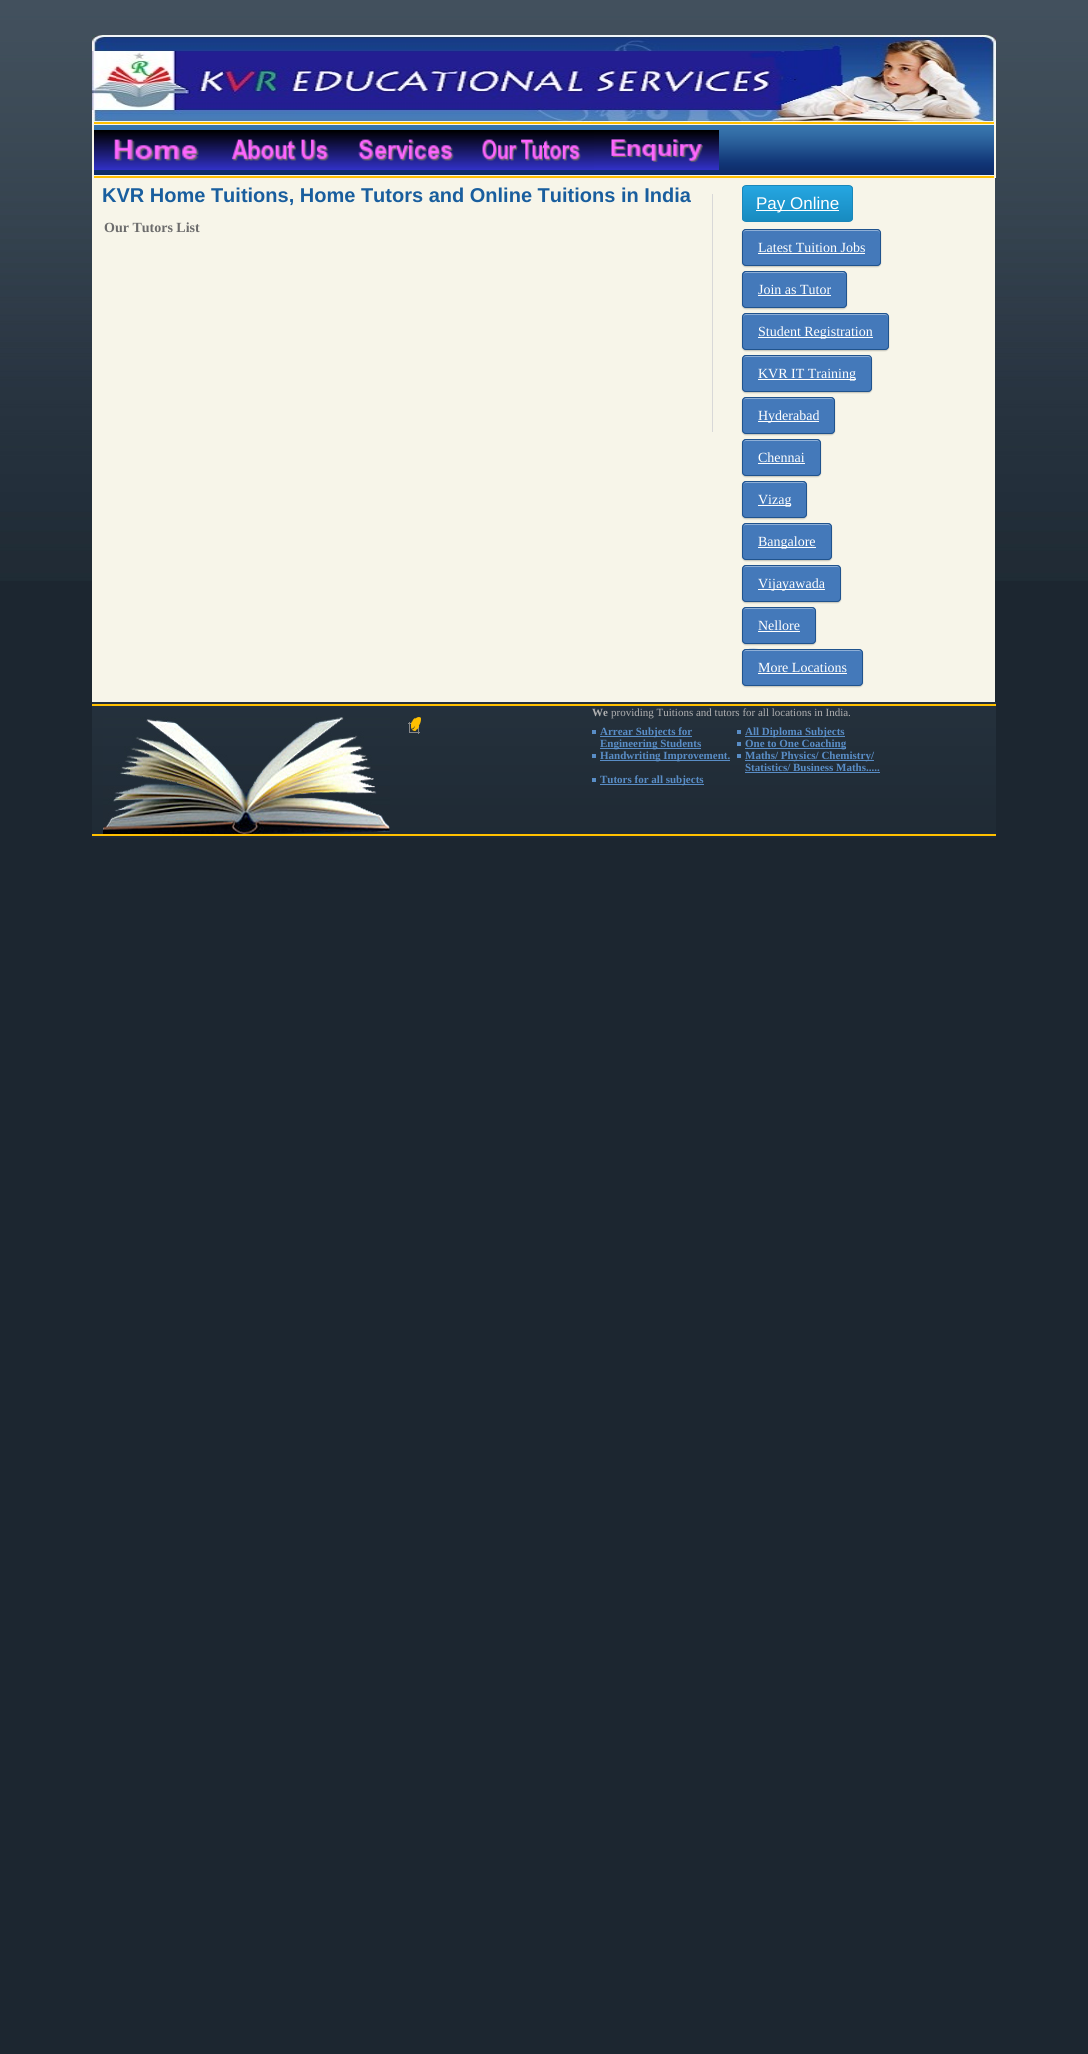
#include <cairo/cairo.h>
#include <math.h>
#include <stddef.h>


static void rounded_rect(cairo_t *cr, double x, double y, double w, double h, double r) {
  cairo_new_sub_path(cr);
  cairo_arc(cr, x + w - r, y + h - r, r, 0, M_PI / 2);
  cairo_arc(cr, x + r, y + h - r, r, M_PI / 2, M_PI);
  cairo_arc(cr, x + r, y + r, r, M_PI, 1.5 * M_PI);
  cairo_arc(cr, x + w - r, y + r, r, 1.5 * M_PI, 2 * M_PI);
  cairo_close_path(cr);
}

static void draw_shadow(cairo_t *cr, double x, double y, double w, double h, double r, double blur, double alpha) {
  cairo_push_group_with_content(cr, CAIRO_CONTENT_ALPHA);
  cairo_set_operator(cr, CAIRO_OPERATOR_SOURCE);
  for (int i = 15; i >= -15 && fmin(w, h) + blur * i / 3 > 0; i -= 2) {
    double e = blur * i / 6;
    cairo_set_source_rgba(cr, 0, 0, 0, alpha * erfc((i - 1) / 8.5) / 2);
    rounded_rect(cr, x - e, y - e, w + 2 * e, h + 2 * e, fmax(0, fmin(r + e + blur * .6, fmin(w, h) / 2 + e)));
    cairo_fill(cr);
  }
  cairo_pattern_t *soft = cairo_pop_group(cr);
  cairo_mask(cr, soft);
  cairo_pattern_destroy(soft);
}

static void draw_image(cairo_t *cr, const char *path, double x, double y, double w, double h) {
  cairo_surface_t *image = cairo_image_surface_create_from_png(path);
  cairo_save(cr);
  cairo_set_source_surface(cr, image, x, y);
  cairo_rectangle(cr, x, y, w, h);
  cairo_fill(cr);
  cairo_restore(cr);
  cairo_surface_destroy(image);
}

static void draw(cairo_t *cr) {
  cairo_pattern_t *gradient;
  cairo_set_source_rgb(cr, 28 / 255.0, 38 / 255.0, 48 / 255.0);
  cairo_paint(cr);
  draw_image(cr, "images/1.png", 0, 0, 1088, 581);
  draw_image(cr, "images/2.png", 92, 35, 904, 87);
  draw_image(cr, "images/3.png", 94, 122, 900, 56);
  cairo_set_source_rgb(cr, 247 / 255.0, 245 / 255.0, 233 / 255.0);
  cairo_rectangle(cr, 994, 122, 2, 56);
  cairo_fill(cr);
  cairo_rectangle(cr, 92, 122, 2, 56);
  cairo_fill(cr);
  draw_image(cr, "images/4.png", 94, 130, 125, 40);
  draw_image(cr, "images/5.png", 219, 130, 125, 40);
  draw_image(cr, "images/6.png", 344, 130, 125, 40);
  draw_image(cr, "images/7.png", 469, 130, 125, 40);
  draw_image(cr, "images/8.png", 594, 130, 125, 40);
  cairo_rectangle(cr, 92, 178, 903, 524);
  cairo_fill(cr);
  cairo_set_source_rgb(cr, 216 / 255.0, 216 / 255.0, 216 / 255.0);
  cairo_rectangle(cr, 712, 194, 1, 238);
  cairo_fill(cr);
  cairo_save(cr);
  rounded_rect(cr, 742, 185, 111, 37, 4);
  cairo_clip(cr);
  gradient = cairo_pattern_create_linear(798, 186, 798, 221);
  cairo_pattern_add_color_stop_rgba(gradient, 0, 37 / 255.0, 166 / 255.0, 225 / 255.0, 1);
  cairo_pattern_add_color_stop_rgba(gradient, 1, 24 / 255.0, 139 / 255.0, 192 / 255.0, 1);
  cairo_set_source(cr, gradient);
  cairo_pattern_destroy(gradient);
  cairo_rectangle(cr, 742, 186, 111, 35);
  cairo_fill(cr);
  cairo_restore(cr);
  rounded_rect(cr, 742.5, 185.5, 110, 36, 3.5);
  cairo_set_source_rgb(cr, 26 / 255.0, 135 / 255.0, 185 / 255.0);
  cairo_set_line_width(cr, 1);
  cairo_stroke(cr);
  cairo_set_source_rgb(cr, 1, 1, 1);
  cairo_rectangle(cr, 756, 210, 83, 1);
  cairo_fill(cr);
  cairo_set_source_rgb(cr, 0, 0, 0);
  draw_shadow(cr, 742, 230, 139, 37, 4, 0.5, 0.2);
  cairo_set_source_rgb(cr, 68 / 255.0, 121 / 255.0, 186 / 255.0);
  rounded_rect(cr, 742, 229, 139, 37, 4);
  cairo_fill(cr);
  cairo_set_source_rgb(cr, 143 / 255.0, 175 / 255.0, 214 / 255.0);
  cairo_new_path(cr);
  cairo_move_to(cr, 746, 231);
  cairo_line_to(cr, 877, 231);
  cairo_curve_to(cr, 879, 231, 880, 232, 880, 234);
  cairo_curve_to(cr, 880, 232, 880, 230, 878, 230);
  cairo_line_to(cr, 745, 230);
  cairo_curve_to(cr, 743, 230, 743, 232, 743, 234);
  cairo_curve_to(cr, 743, 232, 744, 231, 746, 231);
  cairo_close_path(cr);
  cairo_fill(cr);
  rounded_rect(cr, 742.5, 229.5, 138, 36, 3.5);
  cairo_set_source_rgb(cr, 32 / 255.0, 83 / 255.0, 141 / 255.0);
  cairo_stroke(cr);
  cairo_set_source_rgb(cr, 1, 1, 1);
  cairo_rectangle(cr, 758, 253, 107, 1);
  cairo_fill(cr);
  cairo_set_source_rgb(cr, 0, 0, 0);
  draw_shadow(cr, 742, 272, 105, 37, 4, 0.5, 0.2);
  cairo_set_source_rgb(cr, 68 / 255.0, 121 / 255.0, 186 / 255.0);
  rounded_rect(cr, 742, 271, 105, 37, 4);
  cairo_fill(cr);
  cairo_set_source_rgb(cr, 143 / 255.0, 175 / 255.0, 214 / 255.0);
  cairo_new_path(cr);
  cairo_move_to(cr, 746, 273);
  cairo_line_to(cr, 843, 273);
  cairo_curve_to(cr, 845, 273, 846, 274, 846, 276);
  cairo_curve_to(cr, 846, 268, 830, 272, 827, 272);
  cairo_line_to(cr, 762, 272);
  cairo_curve_to(cr, 759, 272, 743, 268, 743, 276);
  cairo_curve_to(cr, 743, 274, 744, 273, 746, 273);
  cairo_close_path(cr);
  cairo_fill(cr);
  rounded_rect(cr, 742.5, 271.5, 104, 36, 3.5);
  cairo_set_source_rgb(cr, 32 / 255.0, 83 / 255.0, 141 / 255.0);
  cairo_stroke(cr);
  cairo_set_source_rgb(cr, 1, 1, 1);
  cairo_rectangle(cr, 758, 295, 73, 1);
  cairo_fill(cr);
  cairo_set_source_rgb(cr, 0, 0, 0);
  draw_shadow(cr, 742, 314, 147, 37, 4, 0.5, 0.2);
  cairo_set_source_rgb(cr, 68 / 255.0, 121 / 255.0, 186 / 255.0);
  rounded_rect(cr, 742, 313, 147, 37, 4);
  cairo_fill(cr);
  cairo_set_source_rgb(cr, 143 / 255.0, 175 / 255.0, 214 / 255.0);
  cairo_new_path(cr);
  cairo_move_to(cr, 746, 315);
  cairo_line_to(cr, 885, 315);
  cairo_curve_to(cr, 887, 315, 888, 316, 888, 318);
  cairo_line_to(cr, 888, 317);
  cairo_curve_to(cr, 888, 315, 887, 314, 885, 314);
  cairo_line_to(cr, 746, 314);
  cairo_curve_to(cr, 744, 314, 743, 315, 743, 317);
  cairo_line_to(cr, 743, 318);
  cairo_curve_to(cr, 743, 316, 744, 315, 746, 315);
  cairo_close_path(cr);
  cairo_fill(cr);
  rounded_rect(cr, 742.5, 313.5, 146, 36, 3.5);
  cairo_set_source_rgb(cr, 32 / 255.0, 83 / 255.0, 141 / 255.0);
  cairo_stroke(cr);
  cairo_set_source_rgb(cr, 1, 1, 1);
  cairo_rectangle(cr, 758, 337, 115, 1);
  cairo_fill(cr);
  cairo_set_source_rgb(cr, 0, 0, 0);
  draw_shadow(cr, 742, 356, 130, 37, 4, 0.5, 0.2);
  cairo_set_source_rgb(cr, 68 / 255.0, 121 / 255.0, 186 / 255.0);
  rounded_rect(cr, 742, 355, 130, 37, 4);
  cairo_fill(cr);
  cairo_set_source_rgb(cr, 143 / 255.0, 175 / 255.0, 214 / 255.0);
  cairo_new_path(cr);
  cairo_move_to(cr, 746, 357);
  cairo_line_to(cr, 868, 357);
  cairo_curve_to(cr, 870, 357, 871, 358, 871, 360);
  cairo_curve_to(cr, 871, 358, 871, 356, 869, 356);
  cairo_line_to(cr, 746, 356);
  cairo_curve_to(cr, 744, 356, 743, 358, 743, 360);
  cairo_curve_to(cr, 743, 358, 744, 357, 746, 357);
  cairo_close_path(cr);
  cairo_fill(cr);
  rounded_rect(cr, 742.5, 355.5, 129, 36, 3.5);
  cairo_set_source_rgb(cr, 32 / 255.0, 83 / 255.0, 141 / 255.0);
  cairo_stroke(cr);
  cairo_set_source_rgb(cr, 1, 1, 1);
  cairo_rectangle(cr, 758, 379, 98, 1);
  cairo_fill(cr);
  cairo_set_source_rgb(cr, 0, 0, 0);
  draw_shadow(cr, 742, 398, 93, 37, 4, 0.5, 0.2);
  cairo_set_source_rgb(cr, 68 / 255.0, 121 / 255.0, 186 / 255.0);
  rounded_rect(cr, 742, 397, 93, 37, 4);
  cairo_fill(cr);
  cairo_set_source_rgb(cr, 143 / 255.0, 175 / 255.0, 214 / 255.0);
  cairo_new_path(cr);
  cairo_move_to(cr, 746, 399);
  cairo_line_to(cr, 831, 399);
  cairo_curve_to(cr, 833, 399, 834, 400, 834, 402);
  cairo_curve_to(cr, 834, 394, 820, 398, 817, 398);
  cairo_line_to(cr, 760, 398);
  cairo_curve_to(cr, 757, 398, 743, 394, 743, 402);
  cairo_curve_to(cr, 743, 400, 744, 399, 746, 399);
  cairo_close_path(cr);
  cairo_fill(cr);
  rounded_rect(cr, 742.5, 397.5, 92, 36, 3.5);
  cairo_set_source_rgb(cr, 32 / 255.0, 83 / 255.0, 141 / 255.0);
  cairo_stroke(cr);
  cairo_set_source_rgb(cr, 1, 1, 1);
  cairo_rectangle(cr, 758, 421, 61, 1);
  cairo_fill(cr);
  cairo_set_source_rgb(cr, 0, 0, 0);
  draw_shadow(cr, 742, 440, 79, 37, 4, 0.5, 0.2);
  cairo_set_source_rgb(cr, 68 / 255.0, 121 / 255.0, 186 / 255.0);
  rounded_rect(cr, 742, 439, 79, 37, 4);
  cairo_fill(cr);
  cairo_set_source_rgb(cr, 143 / 255.0, 175 / 255.0, 214 / 255.0);
  cairo_new_path(cr);
  cairo_move_to(cr, 746, 441);
  cairo_line_to(cr, 817, 441);
  cairo_curve_to(cr, 819, 441, 820, 442, 820, 444);
  cairo_curve_to(cr, 820, 437, 809, 440, 805, 440);
  cairo_line_to(cr, 758, 440);
  cairo_curve_to(cr, 754, 440, 743, 437, 743, 444);
  cairo_curve_to(cr, 743, 442, 744, 441, 746, 441);
  cairo_close_path(cr);
  cairo_fill(cr);
  rounded_rect(cr, 742.5, 439.5, 78, 36, 3.5);
  cairo_set_source_rgb(cr, 32 / 255.0, 83 / 255.0, 141 / 255.0);
  cairo_stroke(cr);
  cairo_set_source_rgb(cr, 1, 1, 1);
  cairo_rectangle(cr, 758, 463, 47, 1);
  cairo_fill(cr);
  cairo_set_source_rgb(cr, 0, 0, 0);
  draw_shadow(cr, 742, 482, 65, 37, 4, 0.5, 0.2);
  cairo_set_source_rgb(cr, 68 / 255.0, 121 / 255.0, 186 / 255.0);
  rounded_rect(cr, 742, 481, 65, 37, 4);
  cairo_fill(cr);
  cairo_set_source_rgb(cr, 143 / 255.0, 175 / 255.0, 214 / 255.0);
  cairo_new_path(cr);
  cairo_move_to(cr, 746, 483);
  cairo_line_to(cr, 803, 483);
  cairo_curve_to(cr, 805, 483, 806, 484, 806, 486);
  cairo_curve_to(cr, 806, 480, 798, 482, 794, 482);
  cairo_line_to(cr, 756, 482);
  cairo_curve_to(cr, 751, 482, 743, 480, 743, 486);
  cairo_curve_to(cr, 743, 484, 744, 483, 746, 483);
  cairo_close_path(cr);
  cairo_fill(cr);
  rounded_rect(cr, 742.5, 481.5, 64, 36, 3.5);
  cairo_set_source_rgb(cr, 32 / 255.0, 83 / 255.0, 141 / 255.0);
  cairo_stroke(cr);
  cairo_set_source_rgb(cr, 1, 1, 1);
  cairo_rectangle(cr, 758, 505, 33, 1);
  cairo_fill(cr);
  cairo_set_source_rgb(cr, 0, 0, 0);
  draw_shadow(cr, 742, 524, 90, 37, 4, 0.5, 0.2);
  cairo_set_source_rgb(cr, 68 / 255.0, 121 / 255.0, 186 / 255.0);
  rounded_rect(cr, 742, 523, 90, 37, 4);
  cairo_fill(cr);
  cairo_set_source_rgb(cr, 143 / 255.0, 175 / 255.0, 214 / 255.0);
  cairo_new_path(cr);
  cairo_move_to(cr, 746, 525);
  cairo_line_to(cr, 828, 525);
  cairo_curve_to(cr, 830, 525, 831, 526, 831, 528);
  cairo_curve_to(cr, 831, 520, 818, 524, 814, 524);
  cairo_line_to(cr, 760, 524);
  cairo_curve_to(cr, 756, 524, 743, 520, 743, 528);
  cairo_curve_to(cr, 743, 526, 744, 525, 746, 525);
  cairo_close_path(cr);
  cairo_fill(cr);
  rounded_rect(cr, 742.5, 523.5, 89, 36, 3.5);
  cairo_set_source_rgb(cr, 32 / 255.0, 83 / 255.0, 141 / 255.0);
  cairo_stroke(cr);
  cairo_set_source_rgb(cr, 1, 1, 1);
  cairo_rectangle(cr, 758, 547, 58, 1);
  cairo_fill(cr);
  cairo_set_source_rgb(cr, 0, 0, 0);
  draw_shadow(cr, 742, 566, 99, 37, 4, 0.5, 0.2);
  cairo_set_source_rgb(cr, 68 / 255.0, 121 / 255.0, 186 / 255.0);
  rounded_rect(cr, 742, 565, 99, 37, 4);
  cairo_fill(cr);
  cairo_set_source_rgb(cr, 143 / 255.0, 175 / 255.0, 214 / 255.0);
  cairo_new_path(cr);
  cairo_move_to(cr, 746, 567);
  cairo_line_to(cr, 837, 567);
  cairo_curve_to(cr, 839, 567, 840, 568, 840, 570);
  cairo_curve_to(cr, 840, 562, 825, 566, 822, 566);
  cairo_line_to(cr, 761, 566);
  cairo_curve_to(cr, 758, 566, 743, 562, 743, 570);
  cairo_curve_to(cr, 743, 568, 744, 567, 746, 567);
  cairo_close_path(cr);
  cairo_fill(cr);
  rounded_rect(cr, 742.5, 565.5, 98, 36, 3.5);
  cairo_set_source_rgb(cr, 32 / 255.0, 83 / 255.0, 141 / 255.0);
  cairo_stroke(cr);
  cairo_set_source_rgb(cr, 1, 1, 1);
  cairo_rectangle(cr, 758, 589, 67, 1);
  cairo_fill(cr);
  cairo_set_source_rgb(cr, 0, 0, 0);
  draw_shadow(cr, 742, 608, 74, 37, 4, 0.5, 0.2);
  cairo_set_source_rgb(cr, 68 / 255.0, 121 / 255.0, 186 / 255.0);
  rounded_rect(cr, 742, 607, 74, 37, 4);
  cairo_fill(cr);
  cairo_set_source_rgb(cr, 143 / 255.0, 175 / 255.0, 214 / 255.0);
  cairo_new_path(cr);
  cairo_move_to(cr, 746, 609);
  cairo_line_to(cr, 812, 609);
  cairo_curve_to(cr, 814, 609, 815, 610, 815, 612);
  cairo_curve_to(cr, 815, 605, 805, 608, 801, 608);
  cairo_line_to(cr, 757, 608);
  cairo_curve_to(cr, 753, 608, 743, 605, 743, 612);
  cairo_curve_to(cr, 743, 610, 744, 609, 746, 609);
  cairo_close_path(cr);
  cairo_fill(cr);
  rounded_rect(cr, 742.5, 607.5, 73, 36, 3.5);
  cairo_set_source_rgb(cr, 32 / 255.0, 83 / 255.0, 141 / 255.0);
  cairo_stroke(cr);
  cairo_set_source_rgb(cr, 1, 1, 1);
  cairo_rectangle(cr, 758, 631, 42, 1);
  cairo_fill(cr);
  cairo_set_source_rgb(cr, 0, 0, 0);
  draw_shadow(cr, 742, 650, 121, 37, 4, 0.5, 0.2);
  cairo_set_source_rgb(cr, 68 / 255.0, 121 / 255.0, 186 / 255.0);
  rounded_rect(cr, 742, 649, 121, 37, 4);
  cairo_fill(cr);
  cairo_set_source_rgb(cr, 143 / 255.0, 175 / 255.0, 214 / 255.0);
  cairo_new_path(cr);
  cairo_move_to(cr, 746, 651);
  cairo_line_to(cr, 859, 651);
  cairo_curve_to(cr, 861, 651, 862, 652, 862, 654);
  cairo_curve_to(cr, 862, 652, 861, 650, 859, 650);
  cairo_line_to(cr, 765, 650);
  cairo_curve_to(cr, 764, 650, 743, 645, 743, 654);
  cairo_curve_to(cr, 743, 652, 744, 651, 746, 651);
  cairo_close_path(cr);
  cairo_fill(cr);
  rounded_rect(cr, 742.5, 649.5, 120, 36, 3.5);
  cairo_set_source_rgb(cr, 32 / 255.0, 83 / 255.0, 141 / 255.0);
  cairo_stroke(cr);
  cairo_set_source_rgb(cr, 1, 1, 1);
  cairo_rectangle(cr, 758, 673, 89, 1);
  cairo_fill(cr);
  draw_image(cr, "images/9.png", 92, 702, 904, 136);
  draw_image(cr, "images/10.png", 103, 717, 287, 117);
  draw_image(cr, "images/11.png", 408, 717, 13, 17);
  cairo_set_source_rgb(cr, 89 / 255.0, 141 / 255.0, 198 / 255.0);
  cairo_rectangle(cr, 592, 730, 4, 4);
  cairo_fill(cr);
  cairo_rectangle(cr, 600, 736, 92, 1);
  cairo_fill(cr);
  cairo_rectangle(cr, 600, 748, 101, 1);
  cairo_fill(cr);
  cairo_rectangle(cr, 737, 730, 4, 4);
  cairo_fill(cr);
  cairo_rectangle(cr, 745, 736, 100, 1);
  cairo_fill(cr);
  cairo_rectangle(cr, 737, 742, 4, 4);
  cairo_fill(cr);
  cairo_rectangle(cr, 745, 748, 101, 1);
  cairo_fill(cr);
  cairo_rectangle(cr, 592, 754, 4, 4);
  cairo_fill(cr);
  cairo_rectangle(cr, 600, 760, 130, 1);
  cairo_fill(cr);
  cairo_rectangle(cr, 737, 754, 4, 4);
  cairo_fill(cr);
  cairo_rectangle(cr, 745, 760, 129, 1);
  cairo_fill(cr);
  cairo_rectangle(cr, 745, 772, 135, 1);
  cairo_fill(cr);
  cairo_rectangle(cr, 592, 778, 4, 4);
  cairo_fill(cr);
  cairo_rectangle(cr, 600, 784, 104, 1);
  cairo_fill(cr);
  cairo_select_font_face(cr, "Liberation Sans", CAIRO_FONT_SLANT_NORMAL, CAIRO_FONT_WEIGHT_BOLD);
  cairo_set_font_size(cr, 20);
  cairo_set_source_rgb(cr, 25 / 255.0, 94 / 255.0, 158 / 255.0);
  cairo_move_to(cr, 102, 202);
  cairo_show_text(cr, "KVR Home Tuitions, Home Tutors and Online Tuitions in India");
  cairo_select_font_face(cr, "Liberation Serif", CAIRO_FONT_SLANT_NORMAL, CAIRO_FONT_WEIGHT_BOLD);
  cairo_set_font_size(cr, 14);
  cairo_set_source_rgb(cr, 108 / 255.0, 108 / 255.0, 108 / 255.0);
  cairo_move_to(cr, 104, 232);
  cairo_show_text(cr, "Our Tutors List");
  cairo_select_font_face(cr, "Liberation Sans", CAIRO_FONT_SLANT_NORMAL, CAIRO_FONT_WEIGHT_NORMAL);
  cairo_set_font_size(cr, 17);
  cairo_set_source_rgb(cr, 1, 1, 1);
  cairo_move_to(cr, 756, 209);
  cairo_show_text(cr, "Pay Online");
  cairo_select_font_face(cr, "Liberation Serif", CAIRO_FONT_SLANT_NORMAL, CAIRO_FONT_WEIGHT_NORMAL);
  cairo_set_font_size(cr, 14);
  cairo_move_to(cr, 758, 252);
  cairo_show_text(cr, "Latest Tuition Jobs");
  cairo_move_to(cr, 758, 294);
  cairo_show_text(cr, "Join as Tutor");
  cairo_move_to(cr, 758, 336);
  cairo_show_text(cr, "Student Registration");
  cairo_move_to(cr, 758, 378);
  cairo_show_text(cr, "KVR IT Training");
  cairo_move_to(cr, 758, 420);
  cairo_show_text(cr, "Hyderabad");
  cairo_move_to(cr, 758, 462);
  cairo_show_text(cr, "Chennai");
  cairo_move_to(cr, 758, 504);
  cairo_show_text(cr, "Vizag");
  cairo_move_to(cr, 758, 546);
  cairo_show_text(cr, "Bangalore");
  cairo_move_to(cr, 758, 588);
  cairo_show_text(cr, "Vijayawada");
  cairo_move_to(cr, 758, 630);
  cairo_show_text(cr, "Nellore");
  cairo_move_to(cr, 758, 672);
  cairo_show_text(cr, "More Locations");
  cairo_select_font_face(cr, "Liberation Serif", CAIRO_FONT_SLANT_NORMAL, CAIRO_FONT_WEIGHT_BOLD);
  cairo_set_font_size(cr, 11);
  cairo_set_source_rgb(cr, 176 / 255.0, 176 / 255.0, 176 / 255.0);
  cairo_move_to(cr, 592, 716);
  cairo_show_text(cr, "We");
  cairo_select_font_face(cr, "Liberation Serif", CAIRO_FONT_SLANT_NORMAL, CAIRO_FONT_WEIGHT_NORMAL);
  cairo_move_to(cr, 611, 716);
  cairo_show_text(cr, "providing Tuitions and tutors for all locations in India.");
  cairo_select_font_face(cr, "Liberation Serif", CAIRO_FONT_SLANT_NORMAL, CAIRO_FONT_WEIGHT_BOLD);
  cairo_set_source_rgb(cr, 89 / 255.0, 141 / 255.0, 198 / 255.0);
  cairo_move_to(cr, 600, 735);
  cairo_show_text(cr, "Arrear Subjects for");
  cairo_move_to(cr, 600, 747);
  cairo_show_text(cr, "Engineering Students");
  cairo_move_to(cr, 745, 735);
  cairo_show_text(cr, "All Diploma Subjects");
  cairo_move_to(cr, 745, 747);
  cairo_show_text(cr, "One to One Coaching");
  cairo_move_to(cr, 600, 759);
  cairo_show_text(cr, "Handwriting Improvement.");
  cairo_move_to(cr, 745, 759);
  cairo_show_text(cr, "Maths/ Physics/ Chemistry/");
  cairo_move_to(cr, 745, 771);
  cairo_show_text(cr, "Statistics/ Business Maths.....");
  cairo_move_to(cr, 600, 783);
  cairo_show_text(cr, "Tutors for all subjects");
}

int main(void) {
  cairo_surface_t *surface = cairo_image_surface_create(CAIRO_FORMAT_RGB24, 1088, 2054);
  cairo_t *cr = cairo_create(surface);
  cairo_font_options_t *options = cairo_font_options_create();
  cairo_font_options_set_hint_metrics(options, CAIRO_HINT_METRICS_OFF);
  cairo_font_options_set_hint_style(options, CAIRO_HINT_STYLE_NONE);
  cairo_set_font_options(cr, options);
  cairo_set_miter_limit(cr, 4);
  draw(cr);
  cairo_surface_write_to_png(surface, "out.png");
  cairo_font_options_destroy(options);
  cairo_destroy(cr);
  cairo_surface_destroy(surface);
  return 0;
}
